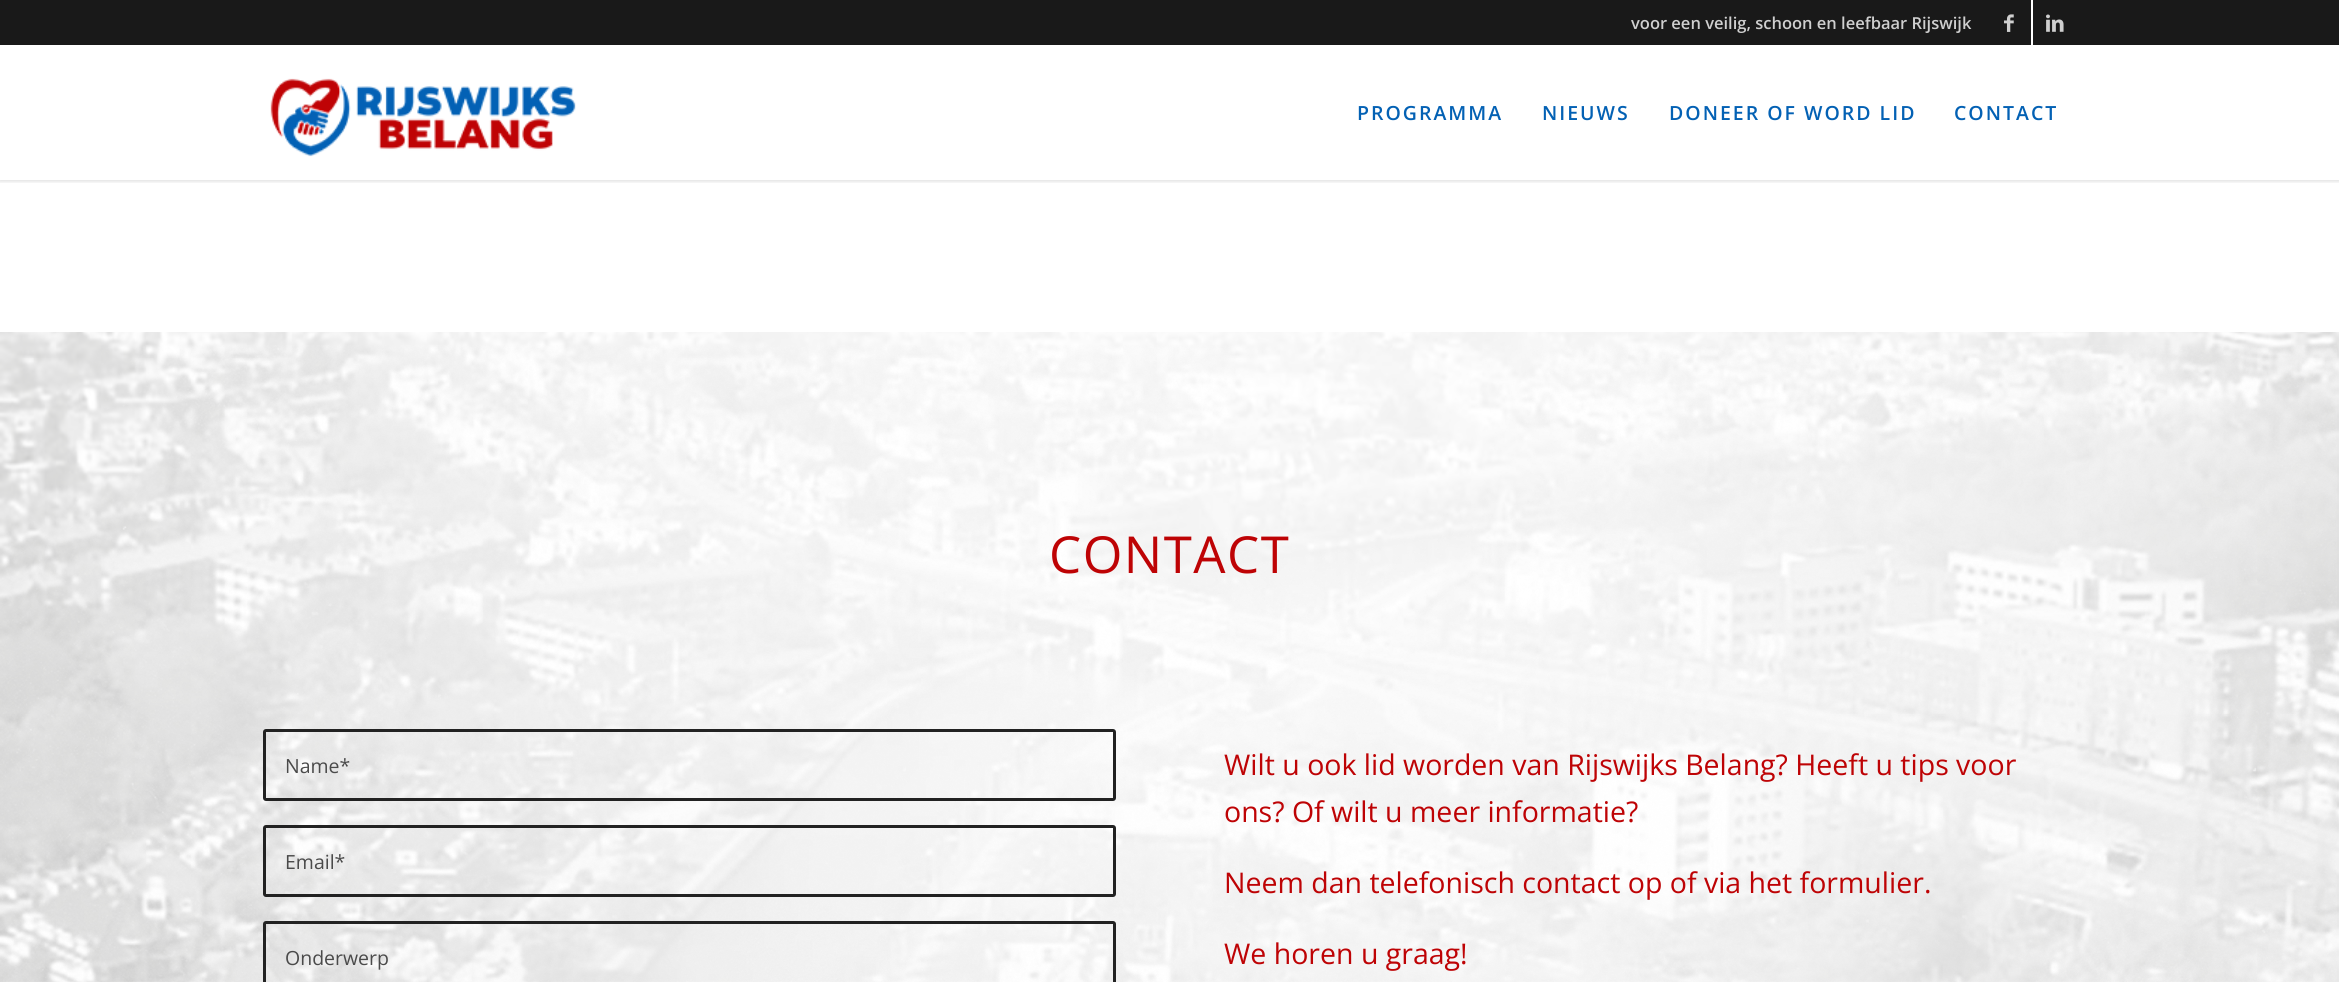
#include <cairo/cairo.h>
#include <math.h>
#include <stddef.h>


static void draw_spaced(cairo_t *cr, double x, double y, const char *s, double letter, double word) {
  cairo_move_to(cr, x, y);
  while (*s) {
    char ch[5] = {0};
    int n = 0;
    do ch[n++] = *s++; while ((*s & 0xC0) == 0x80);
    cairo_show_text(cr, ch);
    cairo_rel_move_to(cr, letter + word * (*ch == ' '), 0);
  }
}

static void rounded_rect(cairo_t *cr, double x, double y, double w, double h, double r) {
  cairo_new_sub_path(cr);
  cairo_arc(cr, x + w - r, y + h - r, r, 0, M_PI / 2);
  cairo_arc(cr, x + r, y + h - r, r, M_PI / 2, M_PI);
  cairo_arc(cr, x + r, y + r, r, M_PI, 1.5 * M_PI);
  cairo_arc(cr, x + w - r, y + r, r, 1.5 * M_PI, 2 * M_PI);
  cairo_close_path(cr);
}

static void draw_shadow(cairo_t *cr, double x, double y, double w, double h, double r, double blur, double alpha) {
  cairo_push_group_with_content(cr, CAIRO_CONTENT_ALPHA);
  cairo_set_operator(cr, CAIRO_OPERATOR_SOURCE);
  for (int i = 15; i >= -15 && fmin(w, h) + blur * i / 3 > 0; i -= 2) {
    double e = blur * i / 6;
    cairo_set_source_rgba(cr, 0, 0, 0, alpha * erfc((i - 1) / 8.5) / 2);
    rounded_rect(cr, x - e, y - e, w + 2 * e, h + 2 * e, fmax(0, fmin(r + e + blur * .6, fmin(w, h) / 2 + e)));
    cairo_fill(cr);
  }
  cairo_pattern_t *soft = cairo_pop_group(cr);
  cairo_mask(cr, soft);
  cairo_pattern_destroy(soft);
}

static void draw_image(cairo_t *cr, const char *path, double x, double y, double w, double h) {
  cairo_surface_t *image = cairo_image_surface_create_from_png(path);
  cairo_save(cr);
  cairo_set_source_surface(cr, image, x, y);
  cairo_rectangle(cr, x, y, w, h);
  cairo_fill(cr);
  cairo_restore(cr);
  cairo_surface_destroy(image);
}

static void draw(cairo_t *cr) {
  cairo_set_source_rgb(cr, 1, 1, 1);
  cairo_paint(cr);
  cairo_save(cr);
  cairo_rectangle(cr, 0, 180, 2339, 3);
  cairo_clip(cr);
  cairo_set_source_rgb(cr, 0, 0, 0);
  draw_shadow(cr, -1, -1, 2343, 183, 0, 1.5, 0.1);
  cairo_restore(cr);
  cairo_set_source_rgb(cr, 25 / 255.0, 25 / 255.0, 25 / 255.0);
  cairo_rectangle(cr, 0, 0, 2339, 45);
  cairo_fill(cr);
  cairo_set_source_rgb(cr, 1, 1, 1);
  cairo_rectangle(cr, 2031, 0, 2, 45);
  cairo_fill(cr);
  draw_image(cr, "images/1.png", 2004, 14, 10, 18);
  draw_image(cr, "images/2.png", 2046, 14, 18, 18);
  draw_image(cr, "images/3.png", 270, 78, 306, 79);
  draw_image(cr, "images/4.png", 0, 332, 2339, 650);
  draw_image(cr, "images/5.png", 0, 345, 2337, 637);
  rounded_rect(cr, 264.5, 730.5, 850, 69, 1.5);
  cairo_set_source_rgb(cr, 34 / 255.0, 34 / 255.0, 34 / 255.0);
  cairo_set_line_width(cr, 3);
  cairo_stroke(cr);
  rounded_rect(cr, 264.5, 826.5, 850, 69, 1.5);
  cairo_stroke(cr);
  rounded_rect(cr, 264.5, 922.5, 850, 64, 1.5);
  cairo_stroke(cr);
  cairo_select_font_face(cr, "Open Sans SemiBold", CAIRO_FONT_SLANT_NORMAL, CAIRO_FONT_WEIGHT_NORMAL);
  cairo_set_font_size(cr, 16.5);
  cairo_set_source_rgb(cr, 207 / 255.0, 207 / 255.0, 207 / 255.0);
  cairo_move_to(cr, 1631, 29);
  cairo_show_text(cr, "voor een veilig, schoon en leefbaar Rijswijk");
  cairo_set_font_size(cr, 19.5);
  cairo_set_source_rgb(cr, 3 / 255.0, 97 / 255.0, 180 / 255.0);
  draw_spaced(cr, 1357, 120, "PROGRAMMA", 2, 0);
  draw_spaced(cr, 1542, 120, "NIEUWS", 2, 0);
  draw_spaced(cr, 1669, 120, "DONEER OF WORD LID", 2, 0);
  draw_spaced(cr, 1954, 120, "CONTACT", 2, 0);
  cairo_select_font_face(cr, "Open Sans", CAIRO_FONT_SLANT_NORMAL, CAIRO_FONT_WEIGHT_NORMAL);
  cairo_set_font_size(cr, 51);
  cairo_set_source_rgb(cr, 190 / 255.0, 3 / 255.0, 5 / 255.0);
  draw_spaced(cr, 1049, 573, "CONTACT", 1.5, 0);
  cairo_set_font_size(cr, 19.5);
  cairo_set_source_rgb(cr, 74 / 255.0, 74 / 255.0, 74 / 255.0);
  cairo_move_to(cr, 285, 773);
  cairo_show_text(cr, "Name*");
  cairo_move_to(cr, 285, 869);
  cairo_show_text(cr, "Email*");
  cairo_move_to(cr, 285, 965);
  cairo_show_text(cr, "Onderwerp");
  cairo_set_font_size(cr, 28.5);
  cairo_set_source_rgb(cr, 190 / 255.0, 3 / 255.0, 5 / 255.0);
  cairo_move_to(cr, 1224, 775);
  cairo_show_text(cr, "Wilt u ook lid worden van Rijswijks Belang? Heeft u tips voor");
  cairo_move_to(cr, 1224, 822);
  cairo_show_text(cr, "ons? Of wilt u meer informatie?");
  cairo_move_to(cr, 1224, 893);
  cairo_show_text(cr, "Neem dan telefonisch contact op of via het formulier.");
  cairo_move_to(cr, 1224, 964);
  cairo_show_text(cr, "We horen u graag!");
}

int main(void) {
  cairo_surface_t *surface = cairo_image_surface_create(CAIRO_FORMAT_RGB24, 2339, 982);
  cairo_t *cr = cairo_create(surface);
  cairo_font_options_t *options = cairo_font_options_create();
  cairo_font_options_set_hint_metrics(options, CAIRO_HINT_METRICS_OFF);
  cairo_font_options_set_hint_style(options, CAIRO_HINT_STYLE_NONE);
  cairo_set_font_options(cr, options);
  cairo_set_miter_limit(cr, 4);
  draw(cr);
  cairo_surface_write_to_png(surface, "out.png");
  cairo_font_options_destroy(options);
  cairo_destroy(cr);
  cairo_surface_destroy(surface);
  return 0;
}
